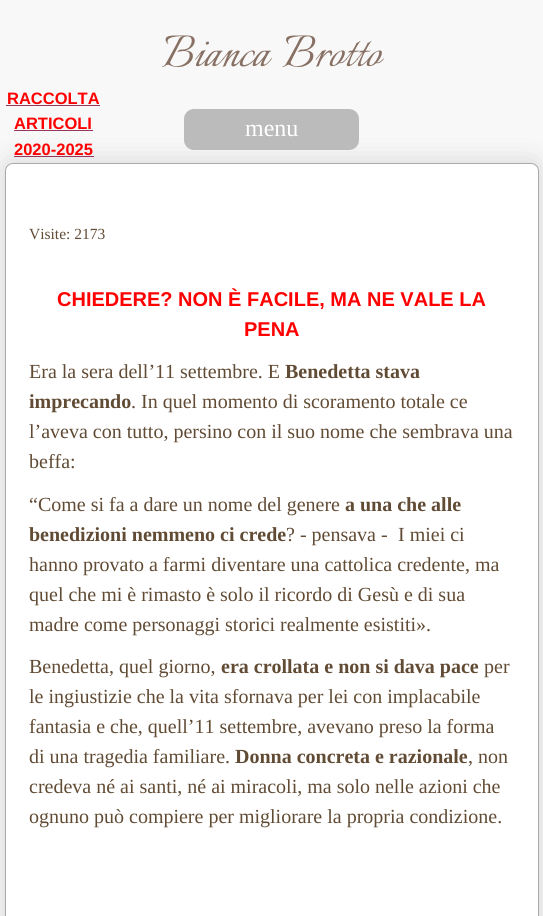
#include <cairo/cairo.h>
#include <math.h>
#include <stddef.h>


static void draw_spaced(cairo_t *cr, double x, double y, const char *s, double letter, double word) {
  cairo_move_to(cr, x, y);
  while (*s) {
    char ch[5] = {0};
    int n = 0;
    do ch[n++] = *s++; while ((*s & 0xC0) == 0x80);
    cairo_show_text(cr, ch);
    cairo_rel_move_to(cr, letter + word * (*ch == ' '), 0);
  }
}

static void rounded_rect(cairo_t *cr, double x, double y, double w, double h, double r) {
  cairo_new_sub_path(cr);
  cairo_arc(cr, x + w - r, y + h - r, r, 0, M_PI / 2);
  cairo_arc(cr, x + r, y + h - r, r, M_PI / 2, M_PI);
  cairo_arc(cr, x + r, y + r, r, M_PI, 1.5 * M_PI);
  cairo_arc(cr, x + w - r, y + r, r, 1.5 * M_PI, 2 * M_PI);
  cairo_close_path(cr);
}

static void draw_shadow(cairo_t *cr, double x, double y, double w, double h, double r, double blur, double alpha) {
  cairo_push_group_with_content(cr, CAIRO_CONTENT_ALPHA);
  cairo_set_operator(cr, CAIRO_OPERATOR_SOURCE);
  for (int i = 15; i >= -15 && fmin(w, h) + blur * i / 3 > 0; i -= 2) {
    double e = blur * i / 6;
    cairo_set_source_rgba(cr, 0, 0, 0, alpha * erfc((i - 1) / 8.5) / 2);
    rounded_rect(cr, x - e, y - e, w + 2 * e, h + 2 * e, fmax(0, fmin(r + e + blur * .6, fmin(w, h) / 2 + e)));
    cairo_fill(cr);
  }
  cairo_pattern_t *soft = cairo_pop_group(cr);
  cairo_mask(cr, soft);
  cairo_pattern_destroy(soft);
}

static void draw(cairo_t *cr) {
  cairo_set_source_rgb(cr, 248 / 255.0, 248 / 255.0, 248 / 255.0);
  cairo_paint(cr);
  cairo_set_source_rgb(cr, 0, 0, 0);
  draw_shadow(cr, 5, 163, 534, 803, 8, 14, 0.14);
  cairo_set_source_rgb(cr, 1, 1, 1);
  rounded_rect(cr, 5.5, 163.5, 533, 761, 7.5);
  cairo_fill_preserve(cr);
  cairo_set_source_rgb(cr, 170 / 255.0, 170 / 255.0, 170 / 255.0);
  cairo_set_line_width(cr, 1);
  cairo_stroke(cr);
  cairo_set_source_rgb(cr, 150 / 255.0, 54 / 255.0, 93 / 255.0);
  cairo_rectangle(cr, 6, 105, 94, 1);
  cairo_fill(cr);
  cairo_rectangle(cr, 14, 130, 79, 1);
  cairo_fill(cr);
  cairo_rectangle(cr, 14, 156, 80, 1);
  cairo_fill(cr);
  cairo_set_source_rgb(cr, 187 / 255.0, 187 / 255.0, 187 / 255.0);
  rounded_rect(cr, 184, 109, 175, 41, 10);
  cairo_fill(cr);
  cairo_select_font_face(cr, "Italianno", CAIRO_FONT_SLANT_NORMAL, CAIRO_FONT_WEIGHT_NORMAL);
  cairo_set_font_size(cr, 56);
  cairo_set_source_rgb(cr, 135 / 255.0, 112 / 255.0, 99 / 255.0);
  draw_spaced(cr, 162, 66, "Bianca Brotto", 0, 4);
  cairo_select_font_face(cr, "Liberation Sans", CAIRO_FONT_SLANT_NORMAL, CAIRO_FONT_WEIGHT_BOLD);
  cairo_set_font_size(cr, 16.5);
  cairo_set_source_rgb(cr, 1, 0, 0);
  cairo_move_to(cr, 7, 104);
  cairo_show_text(cr, "RACCOLTA");
  cairo_move_to(cr, 14, 129);
  cairo_show_text(cr, "ARTICOLI");
  cairo_move_to(cr, 14, 155);
  cairo_show_text(cr, "2020-2025");
  cairo_select_font_face(cr, "Liberation Serif", CAIRO_FONT_SLANT_NORMAL, CAIRO_FONT_WEIGHT_NORMAL);
  cairo_set_font_size(cr, 24);
  cairo_set_source_rgb(cr, 1, 1, 1);
  cairo_move_to(cr, 245, 136);
  cairo_show_text(cr, "menu");
  cairo_set_font_size(cr, 15.5);
  cairo_set_source_rgb(cr, 97 / 255.0, 75 / 255.0, 52 / 255.0);
  cairo_move_to(cr, 29, 239);
  cairo_show_text(cr, "Visite: 2173");
  cairo_select_font_face(cr, "Liberation Sans", CAIRO_FONT_SLANT_NORMAL, CAIRO_FONT_WEIGHT_BOLD);
  cairo_set_font_size(cr, 20);
  cairo_set_source_rgb(cr, 1, 0, 0);
  cairo_move_to(cr, 57, 306);
  cairo_show_text(cr, "CHIEDERE? NON È FACILE, MA NE VALE LA");
  cairo_move_to(cr, 244, 336);
  cairo_show_text(cr, "PENA");
  cairo_select_font_face(cr, "Liberation Serif", CAIRO_FONT_SLANT_NORMAL, CAIRO_FONT_WEIGHT_NORMAL);
  cairo_set_source_rgb(cr, 97 / 255.0, 75 / 255.0, 52 / 255.0);
  cairo_move_to(cr, 29, 378);
  cairo_show_text(cr, "Era la sera dell’11 settembre. E");
  cairo_select_font_face(cr, "Liberation Serif", CAIRO_FONT_SLANT_NORMAL, CAIRO_FONT_WEIGHT_BOLD);
  cairo_move_to(cr, 285, 378);
  cairo_show_text(cr, "Benedetta stava");
  cairo_move_to(cr, 29, 408);
  cairo_show_text(cr, "imprecando");
  cairo_select_font_face(cr, "Liberation Serif", CAIRO_FONT_SLANT_NORMAL, CAIRO_FONT_WEIGHT_NORMAL);
  cairo_move_to(cr, 131, 408);
  cairo_show_text(cr, ". In quel momento di scoramento totale ce");
  cairo_move_to(cr, 29, 438);
  cairo_show_text(cr, "l’aveva con tutto, persino con il suo nome che sembrava una");
  cairo_move_to(cr, 29, 468);
  cairo_show_text(cr, "beffa:");
  cairo_move_to(cr, 29, 511);
  cairo_show_text(cr, "“Come si fa a dare un nome del genere");
  cairo_select_font_face(cr, "Liberation Serif", CAIRO_FONT_SLANT_NORMAL, CAIRO_FONT_WEIGHT_BOLD);
  cairo_move_to(cr, 345, 511);
  cairo_show_text(cr, "a una che alle");
  cairo_move_to(cr, 29, 541);
  cairo_show_text(cr, "benedizioni nemmeno ci crede");
  cairo_select_font_face(cr, "Liberation Serif", CAIRO_FONT_SLANT_NORMAL, CAIRO_FONT_WEIGHT_NORMAL);
  cairo_move_to(cr, 286, 541);
  cairo_show_text(cr, "? - pensava -");
  cairo_move_to(cr, 398, 541);
  cairo_show_text(cr, "I miei ci");
  cairo_move_to(cr, 29, 571);
  cairo_show_text(cr, "hanno provato a farmi diventare una cattolica credente, ma");
  cairo_move_to(cr, 29, 601);
  cairo_show_text(cr, "quel che mi è rimasto è solo il ricordo di Gesù e di sua");
  cairo_move_to(cr, 29, 631);
  cairo_show_text(cr, "madre come personaggi storici realmente esistiti».");
  cairo_move_to(cr, 29, 673);
  cairo_show_text(cr, "Benedetta, quel giorno,");
  cairo_select_font_face(cr, "Liberation Serif", CAIRO_FONT_SLANT_NORMAL, CAIRO_FONT_WEIGHT_BOLD);
  cairo_move_to(cr, 221, 673);
  cairo_show_text(cr, "era crollata e non si dava pace");
  cairo_select_font_face(cr, "Liberation Serif", CAIRO_FONT_SLANT_NORMAL, CAIRO_FONT_WEIGHT_NORMAL);
  cairo_move_to(cr, 484, 673);
  cairo_show_text(cr, "per");
  cairo_move_to(cr, 29, 703);
  cairo_show_text(cr, "le ingiustizie che la vita sfornava per lei con implacabile");
  cairo_move_to(cr, 29, 733);
  cairo_show_text(cr, "fantasia e che, quell’11 settembre, avevano preso la forma");
  cairo_move_to(cr, 29, 763);
  cairo_show_text(cr, "di una tragedia familiare.");
  cairo_select_font_face(cr, "Liberation Serif", CAIRO_FONT_SLANT_NORMAL, CAIRO_FONT_WEIGHT_BOLD);
  cairo_move_to(cr, 235, 763);
  cairo_show_text(cr, "Donna concreta e razionale");
  cairo_select_font_face(cr, "Liberation Serif", CAIRO_FONT_SLANT_NORMAL, CAIRO_FONT_WEIGHT_NORMAL);
  cairo_move_to(cr, 468, 763);
  cairo_show_text(cr, ", non");
  cairo_move_to(cr, 29, 793);
  cairo_show_text(cr, "credeva né ai santi, né ai miracoli, ma solo nelle azioni che");
  cairo_move_to(cr, 29, 823);
  cairo_show_text(cr, "ognuno può compiere per migliorare la propria condizione.");
}

int main(void) {
  cairo_surface_t *surface = cairo_image_surface_create(CAIRO_FORMAT_RGB24, 543, 916);
  cairo_t *cr = cairo_create(surface);
  cairo_font_options_t *options = cairo_font_options_create();
  cairo_font_options_set_hint_metrics(options, CAIRO_HINT_METRICS_OFF);
  cairo_font_options_set_hint_style(options, CAIRO_HINT_STYLE_NONE);
  cairo_set_font_options(cr, options);
  cairo_set_miter_limit(cr, 4);
  draw(cr);
  cairo_surface_write_to_png(surface, "out.png");
  cairo_font_options_destroy(options);
  cairo_destroy(cr);
  cairo_surface_destroy(surface);
  return 0;
}
